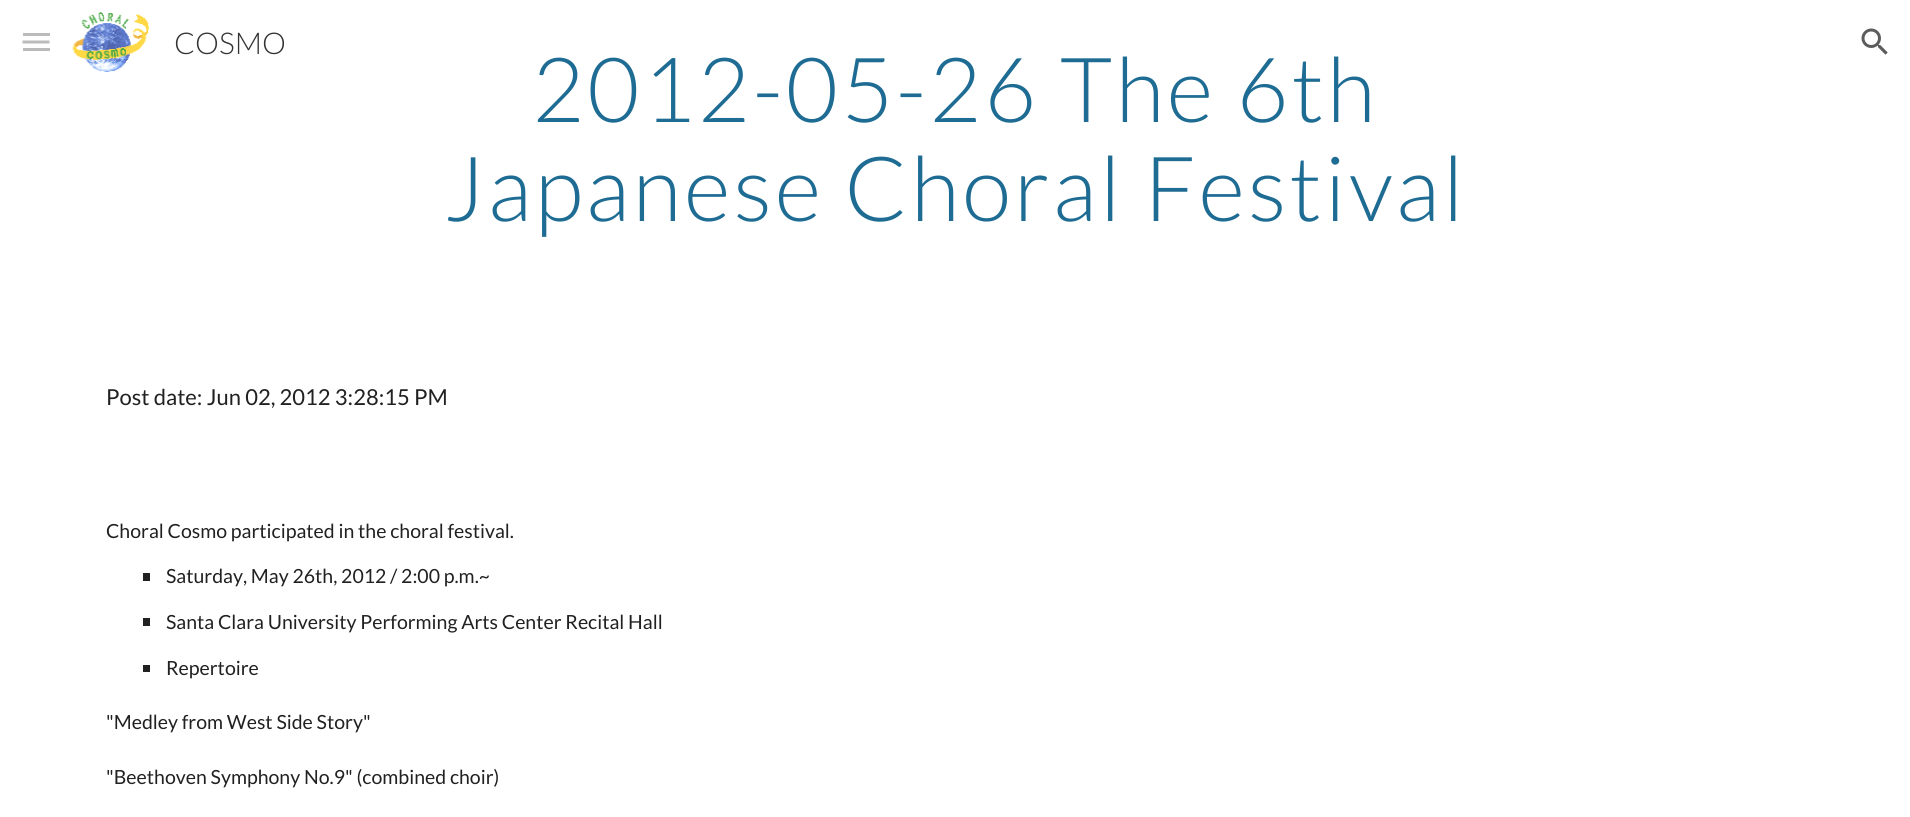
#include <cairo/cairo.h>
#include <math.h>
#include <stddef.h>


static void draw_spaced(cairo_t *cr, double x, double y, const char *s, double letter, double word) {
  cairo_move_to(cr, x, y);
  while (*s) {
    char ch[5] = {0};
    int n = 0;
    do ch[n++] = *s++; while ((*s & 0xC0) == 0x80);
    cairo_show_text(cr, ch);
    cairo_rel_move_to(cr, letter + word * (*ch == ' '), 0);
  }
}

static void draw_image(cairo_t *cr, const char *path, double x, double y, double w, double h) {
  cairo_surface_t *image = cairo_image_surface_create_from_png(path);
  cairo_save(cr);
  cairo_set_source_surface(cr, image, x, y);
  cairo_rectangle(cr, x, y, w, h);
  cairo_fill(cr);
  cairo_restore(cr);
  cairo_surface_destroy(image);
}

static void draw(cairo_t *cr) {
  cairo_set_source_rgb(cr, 1, 1, 1);
  cairo_paint(cr);
  cairo_set_source_rgb(cr, 187 / 255.0, 187 / 255.0, 187 / 255.0);
  cairo_rectangle(cr, 23, 33, 27, 3);
  cairo_fill(cr);
  cairo_new_path(cr);
  cairo_move_to(cr, 22.5, 42);
  cairo_line_to(cr, 49.5, 42);
  cairo_set_line_width(cr, 3);
  cairo_stroke(cr);
  cairo_rectangle(cr, 23, 48, 27, 3);
  cairo_fill(cr);
  draw_image(cr, "images/1.png", 72, 12, 78, 60);
  draw_image(cr, "images/2.png", 1861, 28, 27, 27);
  cairo_set_source_rgb(cr, 33 / 255.0, 33 / 255.0, 33 / 255.0);
  cairo_rectangle(cr, 143, 573, 7, 8);
  cairo_fill(cr);
  cairo_rectangle(cr, 143, 618, 7, 8);
  cairo_fill(cr);
  cairo_rectangle(cr, 143, 665, 7, 7);
  cairo_fill(cr);
  cairo_select_font_face(cr, "Lato Light", CAIRO_FONT_SLANT_NORMAL, CAIRO_FONT_WEIGHT_NORMAL);
  cairo_set_font_size(cr, 30);
  cairo_set_source_rgb(cr, 51 / 255.0, 51 / 255.0, 51 / 255.0);
  cairo_move_to(cr, 174, 54);
  cairo_show_text(cr, "COSMO");
  cairo_set_font_size(cr, 90);
  cairo_set_source_rgb(cr, 30 / 255.0, 108 / 255.0, 147 / 255.0);
  draw_spaced(cr, 532, 122, "2012-05-26 The 6th", 3, 0);
  draw_spaced(cr, 444, 221, "Japanese Choral Festival", 3, 0);
  cairo_select_font_face(cr, "Lato", CAIRO_FONT_SLANT_NORMAL, CAIRO_FONT_WEIGHT_NORMAL);
  cairo_set_font_size(cr, 22);
  cairo_set_source_rgb(cr, 33 / 255.0, 33 / 255.0, 33 / 255.0);
  cairo_move_to(cr, 106, 405);
  cairo_show_text(cr, "Post date: Jun 02, 2012 3:28:15 PM");
  cairo_set_font_size(cr, 19.5);
  cairo_move_to(cr, 106, 538);
  cairo_show_text(cr, "Choral Cosmo participated in the choral festival.");
  cairo_move_to(cr, 166, 583);
  cairo_show_text(cr, "Saturday, May 26th, 2012 / 2:00 p.m.~");
  cairo_move_to(cr, 166, 629);
  cairo_show_text(cr, "Santa Clara University Performing Arts Center Recital Hall");
  cairo_move_to(cr, 166, 675);
  cairo_show_text(cr, "Repertoire");
  cairo_move_to(cr, 106, 729);
  cairo_show_text(cr, "\"Medley from West Side Story\"");
  cairo_move_to(cr, 106, 784);
  cairo_show_text(cr, "\"Beethoven Symphony No.9\" (combined choir)");
}

int main(void) {
  cairo_surface_t *surface = cairo_image_surface_create(CAIRO_FORMAT_RGB24, 1910, 817);
  cairo_t *cr = cairo_create(surface);
  cairo_font_options_t *options = cairo_font_options_create();
  cairo_font_options_set_hint_metrics(options, CAIRO_HINT_METRICS_OFF);
  cairo_font_options_set_hint_style(options, CAIRO_HINT_STYLE_NONE);
  cairo_set_font_options(cr, options);
  cairo_set_miter_limit(cr, 4);
  draw(cr);
  cairo_surface_write_to_png(surface, "out.png");
  cairo_font_options_destroy(options);
  cairo_destroy(cr);
  cairo_surface_destroy(surface);
  return 0;
}
